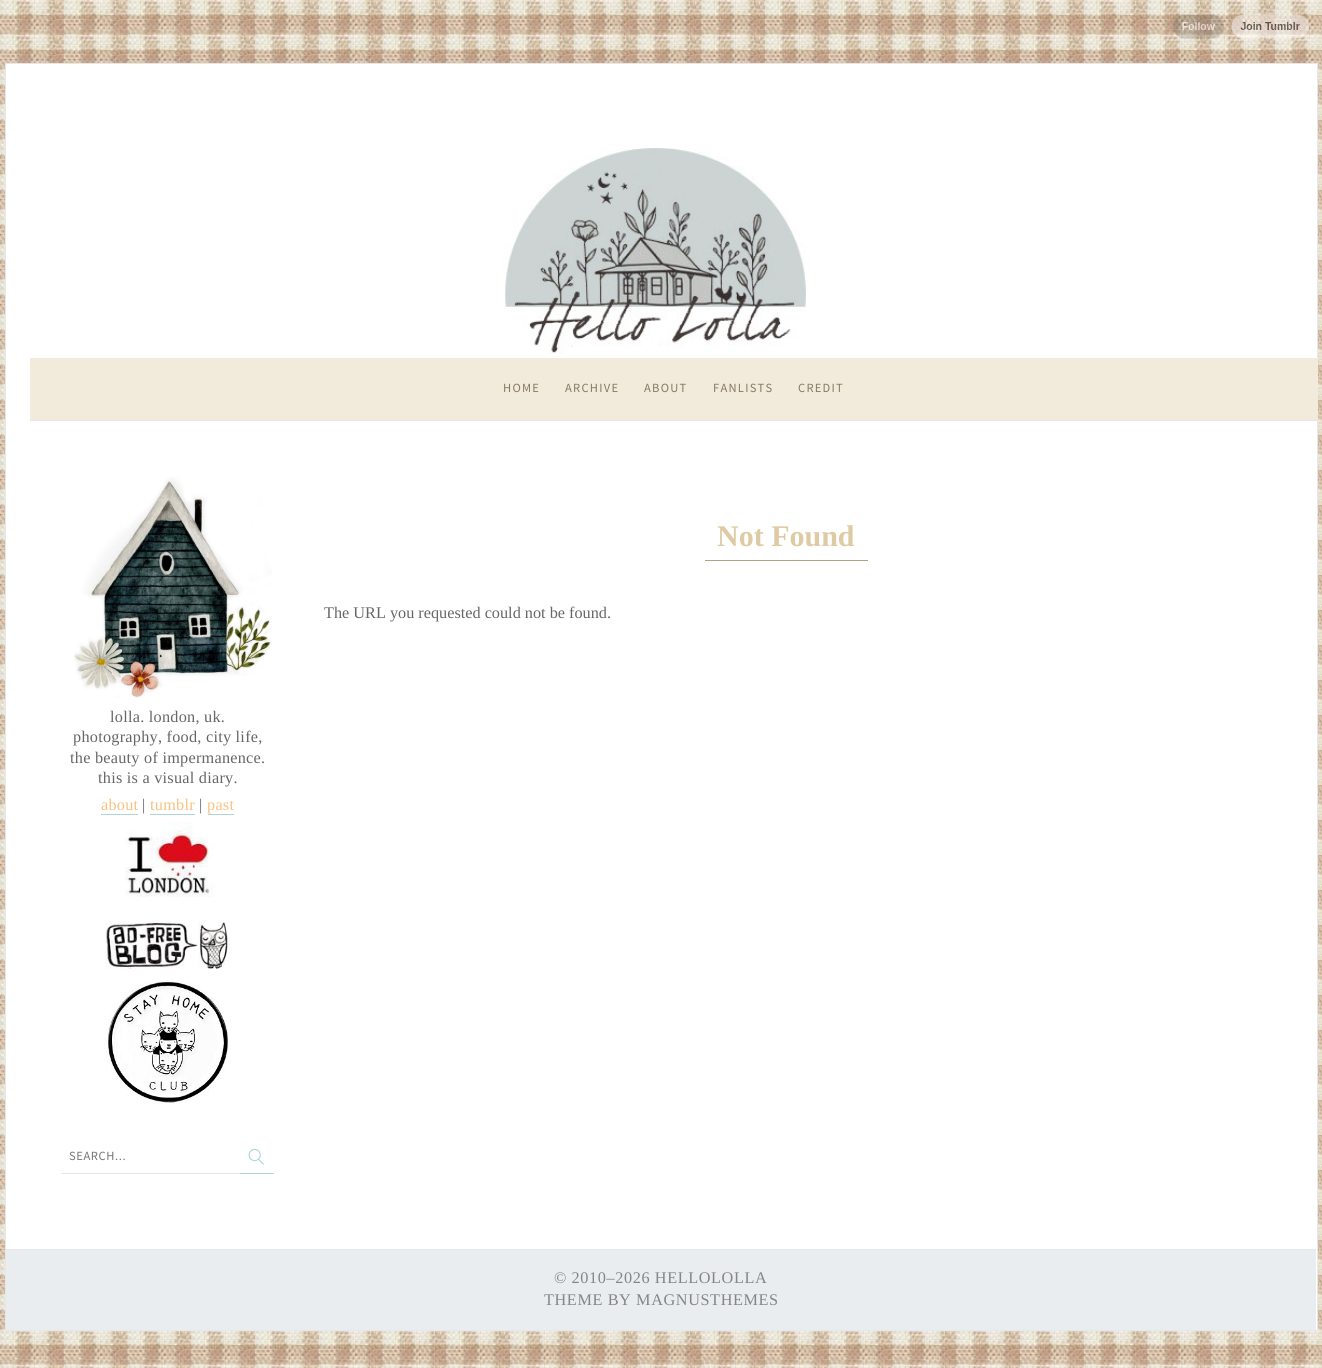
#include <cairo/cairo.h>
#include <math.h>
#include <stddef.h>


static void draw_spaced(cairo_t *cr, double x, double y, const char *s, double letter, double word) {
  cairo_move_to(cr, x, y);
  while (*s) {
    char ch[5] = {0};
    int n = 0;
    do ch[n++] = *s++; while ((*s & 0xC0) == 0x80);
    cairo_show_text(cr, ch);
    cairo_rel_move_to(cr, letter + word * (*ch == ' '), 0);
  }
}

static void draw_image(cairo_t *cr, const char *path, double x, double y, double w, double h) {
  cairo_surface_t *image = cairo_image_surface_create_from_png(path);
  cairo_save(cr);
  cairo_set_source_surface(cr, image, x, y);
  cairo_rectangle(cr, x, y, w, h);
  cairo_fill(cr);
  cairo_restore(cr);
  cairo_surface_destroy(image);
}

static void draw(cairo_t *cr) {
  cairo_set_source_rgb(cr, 1, 1, 1);
  cairo_paint(cr);
  draw_image(cr, "images/1.png", 0, 0, 1322, 1368);
  draw_image(cr, "images/2.png", 1173, 14, 136, 25);
  cairo_set_source_rgb(cr, 1, 1, 1);
  cairo_rectangle(cr, 5.5, 63.5, 1312, 1267);
  cairo_fill_preserve(cr);
  cairo_set_source_rgb(cr, 229 / 255.0, 232 / 255.0, 234 / 255.0);
  cairo_set_line_width(cr, 1);
  cairo_stroke(cr);
  draw_image(cr, "images/3.png", 504, 148, 302, 206);
  cairo_set_source_rgb(cr, 242 / 255.0, 234 / 255.0, 219 / 255.0);
  cairo_rectangle(cr, 30, 358, 1288, 62);
  cairo_fill(cr);
  cairo_set_source_rgb(cr, 229 / 255.0, 232 / 255.0, 234 / 255.0);
  cairo_rectangle(cr, 30, 420, 1288, 1);
  cairo_fill(cr);
  cairo_set_source_rgb(cr, 178 / 255.0, 162 / 255.0, 131 / 255.0);
  cairo_rectangle(cr, 705, 560, 163, 1);
  cairo_fill(cr);
  draw_image(cr, "images/4.png", 74, 477, 198, 221);
  cairo_set_source_rgb(cr, 175 / 255.0, 213 / 255.0, 213 / 255.0);
  cairo_rectangle(cr, 101, 814, 37, 1);
  cairo_fill(cr);
  cairo_rectangle(cr, 150, 814, 45, 1);
  cairo_fill(cr);
  cairo_rectangle(cr, 208, 814, 26, 1);
  cairo_fill(cr);
  draw_image(cr, "images/5.png", 125, 822, 90, 75);
  draw_image(cr, "images/6.png", 105, 921, 125, 48);
  draw_image(cr, "images/7.png", 107, 981, 121, 123);
  cairo_set_source_rgb(cr, 229 / 255.0, 232 / 255.0, 234 / 255.0);
  cairo_rectangle(cr, 61, 1173, 179, 1);
  cairo_fill(cr);
  cairo_set_source_rgb(cr, 175 / 255.0, 213 / 255.0, 213 / 255.0);
  cairo_rectangle(cr, 240, 1173, 34, 1);
  cairo_fill(cr);
  draw_image(cr, "images/8.png", 248, 1148, 16, 17);
  cairo_set_source_rgb(cr, 234 / 255.0, 237 / 255.0, 239 / 255.0);
  cairo_rectangle(cr, 6, 1250, 1310, 80);
  cairo_fill(cr);
  cairo_set_source_rgb(cr, 229 / 255.0, 232 / 255.0, 234 / 255.0);
  cairo_rectangle(cr, 6, 1249, 1310, 1);
  cairo_fill(cr);
  cairo_select_font_face(cr, "Source Sans Pro", CAIRO_FONT_SLANT_NORMAL, CAIRO_FONT_WEIGHT_NORMAL);
  cairo_set_font_size(cr, 12.5);
  cairo_set_source_rgb(cr, 133 / 255.0, 122 / 255.0, 98 / 255.0);
  draw_spaced(cr, 503, 392, "HOME", 1.25, 0);
  draw_spaced(cr, 565, 392, "ARCHIVE", 1.25, 0);
  draw_spaced(cr, 644, 392, "ABOUT", 1.25, 0);
  draw_spaced(cr, 713, 392, "FANLISTS", 1.25, 0);
  draw_spaced(cr, 798, 392, "CREDIT", 1.25, 0);
  cairo_select_font_face(cr, "Liberation Serif", CAIRO_FONT_SLANT_NORMAL, CAIRO_FONT_WEIGHT_BOLD);
  cairo_set_font_size(cr, 30);
  cairo_set_source_rgb(cr, 222 / 255.0, 203 / 255.0, 164 / 255.0);
  cairo_move_to(cr, 717, 546);
  cairo_show_text(cr, "Not Found");
  cairo_select_font_face(cr, "Liberation Serif", CAIRO_FONT_SLANT_NORMAL, CAIRO_FONT_WEIGHT_NORMAL);
  cairo_set_font_size(cr, 16.25);
  cairo_set_source_rgb(cr, 102 / 255.0, 102 / 255.0, 102 / 255.0);
  cairo_move_to(cr, 324, 618);
  cairo_show_text(cr, "The URL you requested could not be found.");
  draw_spaced(cr, 110, 722, "lolla. london, uk.", 0.25, 0);
  draw_spaced(cr, 73, 742, "photography, food, city life,", 0.25, 0);
  draw_spaced(cr, 70, 763, "the beauty of impermanence.", 0.25, 0);
  draw_spaced(cr, 98, 783, "this is a visual diary.", 0.25, 0);
  cairo_set_source_rgb(cr, 247 / 255.0, 194 / 255.0, 130 / 255.0);
  draw_spaced(cr, 101, 810, "about", 0.25, 0);
  cairo_set_source_rgb(cr, 102 / 255.0, 102 / 255.0, 102 / 255.0);
  draw_spaced(cr, 142, 810, "|", 0.25, 0);
  cairo_set_source_rgb(cr, 247 / 255.0, 194 / 255.0, 130 / 255.0);
  draw_spaced(cr, 150, 810, "tumblr", 0.25, 0);
  cairo_set_source_rgb(cr, 102 / 255.0, 102 / 255.0, 102 / 255.0);
  draw_spaced(cr, 199, 810, "|", 0.25, 0);
  cairo_set_source_rgb(cr, 247 / 255.0, 194 / 255.0, 130 / 255.0);
  draw_spaced(cr, 207, 810, "past", 0.25, 0);
  cairo_select_font_face(cr, "Source Sans Pro", CAIRO_FONT_SLANT_NORMAL, CAIRO_FONT_WEIGHT_NORMAL);
  cairo_set_font_size(cr, 12.5);
  cairo_set_source_rgb(cr, 117 / 255.0, 117 / 255.0, 117 / 255.0);
  draw_spaced(cr, 69, 1160, "SEARCH...", 0.6, 0);
  cairo_select_font_face(cr, "Liberation Serif", CAIRO_FONT_SLANT_NORMAL, CAIRO_FONT_WEIGHT_NORMAL);
  cairo_set_font_size(cr, 16.25);
  cairo_set_source_rgb(cr, 131 / 255.0, 133 / 255.0, 134 / 255.0);
  draw_spaced(cr, 554, 1283, "© 2010–2026 HELLOLOLLA", 0.6, 0);
  draw_spaced(cr, 544, 1305, "THEME BY MAGNUSTHEMES", 0.6, 0);
}

int main(void) {
  cairo_surface_t *surface = cairo_image_surface_create(CAIRO_FORMAT_RGB24, 1322, 1368);
  cairo_t *cr = cairo_create(surface);
  cairo_font_options_t *options = cairo_font_options_create();
  cairo_font_options_set_hint_metrics(options, CAIRO_HINT_METRICS_OFF);
  cairo_font_options_set_hint_style(options, CAIRO_HINT_STYLE_NONE);
  cairo_set_font_options(cr, options);
  cairo_set_miter_limit(cr, 4);
  draw(cr);
  cairo_surface_write_to_png(surface, "out.png");
  cairo_font_options_destroy(options);
  cairo_destroy(cr);
  cairo_surface_destroy(surface);
  return 0;
}
